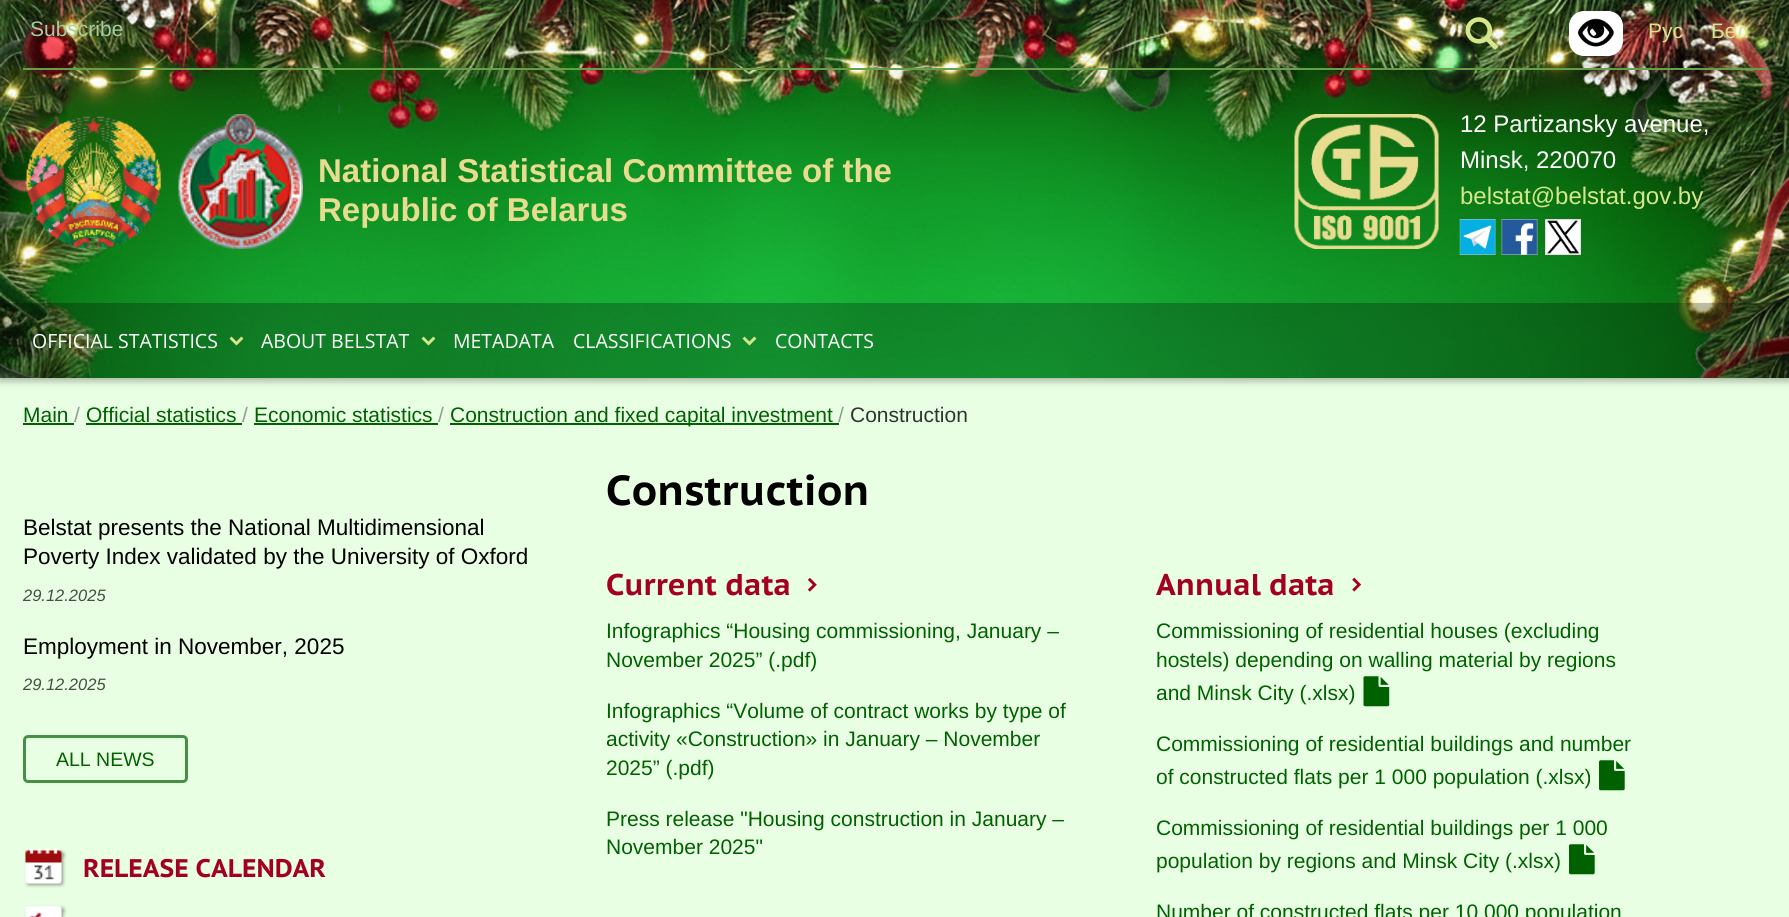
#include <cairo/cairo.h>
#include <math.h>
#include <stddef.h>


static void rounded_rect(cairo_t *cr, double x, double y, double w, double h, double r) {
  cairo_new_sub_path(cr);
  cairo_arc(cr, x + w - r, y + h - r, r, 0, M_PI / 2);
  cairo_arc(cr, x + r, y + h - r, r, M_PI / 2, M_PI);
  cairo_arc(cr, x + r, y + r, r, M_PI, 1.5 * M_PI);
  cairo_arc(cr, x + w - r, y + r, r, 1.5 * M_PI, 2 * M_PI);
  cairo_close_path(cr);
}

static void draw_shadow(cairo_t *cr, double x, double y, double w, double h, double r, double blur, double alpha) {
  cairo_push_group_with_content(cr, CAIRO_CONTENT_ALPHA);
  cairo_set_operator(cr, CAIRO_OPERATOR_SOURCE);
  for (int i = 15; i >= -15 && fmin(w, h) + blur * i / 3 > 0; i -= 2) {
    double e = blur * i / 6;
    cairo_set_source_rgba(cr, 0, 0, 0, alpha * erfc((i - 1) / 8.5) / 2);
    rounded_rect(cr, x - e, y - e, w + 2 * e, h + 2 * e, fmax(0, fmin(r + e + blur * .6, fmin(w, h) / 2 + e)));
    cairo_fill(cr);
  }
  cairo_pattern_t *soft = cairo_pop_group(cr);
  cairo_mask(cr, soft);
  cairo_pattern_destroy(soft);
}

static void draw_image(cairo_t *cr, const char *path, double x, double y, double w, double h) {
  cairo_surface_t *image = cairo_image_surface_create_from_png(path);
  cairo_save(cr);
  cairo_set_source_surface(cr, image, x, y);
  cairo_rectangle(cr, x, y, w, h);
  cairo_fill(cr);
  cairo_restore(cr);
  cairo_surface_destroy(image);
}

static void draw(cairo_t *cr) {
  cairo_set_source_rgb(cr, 233 / 255.0, 1, 227 / 255.0);
  cairo_paint(cr);
  cairo_set_source_rgb(cr, 0, 0, 0);
  draw_shadow(cr, 0, 3, 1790, 378, 0, 4, 0.3);
  draw_image(cr, "images/1.png", 0, 0, 1789, 378);
  cairo_set_source_rgb(cr, 103 / 255.0, 158 / 255.0, 73 / 255.0);
  cairo_rectangle(cr, 23, 68, 1744, 2);
  cairo_fill(cr);
  draw_image(cr, "images/2.png", 1465, 17, 34, 33);
  cairo_set_source_rgb(cr, 1, 1, 1);
  rounded_rect(cr, 1569, 11, 54, 45, 15);
  cairo_fill(cr);
  draw_image(cr, "images/3.png", 1577, 18, 37, 29);
  draw_image(cr, "images/4.png", 25, 116, 137, 133);
  draw_image(cr, "images/5.png", 178, 114, 125, 135);
  draw_image(cr, "images/6.png", 1294, 114, 145, 135);
  draw_image(cr, "images/7.png", 1459, 219, 37, 36);
  draw_image(cr, "images/8.png", 1501, 219, 37, 36);
  draw_image(cr, "images/9.png", 1545, 219, 36, 36);
  cairo_set_source_rgba(cr, 0, 0, 0, 0.25);
  cairo_rectangle(cr, 0, 303, 1789, 75);
  cairo_fill(cr);
  draw_image(cr, "images/10.png", 229, 336, 15, 10);
  draw_image(cr, "images/11.png", 421, 336, 15, 10);
  draw_image(cr, "images/12.png", 742, 336, 15, 10);
  cairo_set_source_rgb(cr, 0, 97 / 255.0, 0);
  cairo_rectangle(cr, 23, 423, 51, 2);
  cairo_fill(cr);
  cairo_rectangle(cr, 86, 423, 156, 2);
  cairo_fill(cr);
  cairo_rectangle(cr, 254, 423, 184, 2);
  cairo_fill(cr);
  cairo_rectangle(cr, 450, 423, 389, 2);
  cairo_fill(cr);
  rounded_rect(cr, 24.5, 736.5, 162, 45, 3.5);
  cairo_set_source_rgb(cr, 69 / 255.0, 144 / 255.0, 68 / 255.0);
  cairo_set_line_width(cr, 3);
  cairo_stroke(cr);
  draw_image(cr, "images/13.png", 24, 847, 43, 41);
  draw_image(cr, "images/14.png", 24, 905, 43, 12);
  draw_image(cr, "images/15.png", 807, 577, 10, 15);
  draw_image(cr, "images/16.png", 1352, 577, 10, 15);
  draw_image(cr, "images/17.png", 1363, 676, 27, 31);
  draw_image(cr, "images/18.png", 1599, 760, 26, 31);
  draw_image(cr, "images/18.png", 1569, 844, 26, 31);
  cairo_select_font_face(cr, "Liberation Sans", CAIRO_FONT_SLANT_NORMAL, CAIRO_FONT_WEIGHT_NORMAL);
  cairo_set_font_size(cr, 21);
  cairo_set_source_rgb(cr, 163 / 255.0, 206 / 255.0, 160 / 255.0);
  cairo_move_to(cr, 30, 36);
  cairo_show_text(cr, "Subscribe");
  cairo_set_source_rgb(cr, 214 / 255.0, 231 / 255.0, 139 / 255.0);
  cairo_move_to(cr, 1648, 38);
  cairo_show_text(cr, "Рус");
  cairo_move_to(cr, 1711, 38);
  cairo_show_text(cr, "Бел");
  cairo_select_font_face(cr, "Liberation Sans", CAIRO_FONT_SLANT_NORMAL, CAIRO_FONT_WEIGHT_BOLD);
  cairo_set_font_size(cr, 33);
  cairo_set_source_rgb(cr, 231 / 255.0, 220 / 255.0, 144 / 255.0);
  cairo_move_to(cr, 318, 182);
  cairo_show_text(cr, "National Statistical Committee of the");
  cairo_move_to(cr, 318, 221);
  cairo_show_text(cr, "Republic of Belarus");
  cairo_select_font_face(cr, "Liberation Sans", CAIRO_FONT_SLANT_NORMAL, CAIRO_FONT_WEIGHT_NORMAL);
  cairo_set_font_size(cr, 24);
  cairo_set_source_rgb(cr, 1, 1, 1);
  cairo_move_to(cr, 1460, 132);
  cairo_show_text(cr, "12 Partizansky avenue,");
  cairo_move_to(cr, 1460, 168);
  cairo_show_text(cr, "Minsk, 220070");
  cairo_set_source_rgb(cr, 214 / 255.0, 231 / 255.0, 139 / 255.0);
  cairo_move_to(cr, 1460, 204);
  cairo_show_text(cr, "belstat@belstat.gov.by");
  cairo_select_font_face(cr, "Open Sans", CAIRO_FONT_SLANT_NORMAL, CAIRO_FONT_WEIGHT_NORMAL);
  cairo_set_font_size(cr, 19.5);
  cairo_set_source_rgb(cr, 1, 1, 1);
  cairo_move_to(cr, 32, 348);
  cairo_show_text(cr, "OFFICIAL STATISTICS");
  cairo_move_to(cr, 261, 348);
  cairo_show_text(cr, "ABOUT BELSTAT");
  cairo_move_to(cr, 453, 348);
  cairo_show_text(cr, "METADATA");
  cairo_move_to(cr, 573, 348);
  cairo_show_text(cr, "CLASSIFICATIONS");
  cairo_move_to(cr, 775, 348);
  cairo_show_text(cr, "CONTACTS");
  cairo_select_font_face(cr, "Liberation Sans", CAIRO_FONT_SLANT_NORMAL, CAIRO_FONT_WEIGHT_NORMAL);
  cairo_set_font_size(cr, 21);
  cairo_set_source_rgb(cr, 0, 97 / 255.0, 0);
  cairo_move_to(cr, 23, 422);
  cairo_show_text(cr, "Main");
  cairo_set_source_rgb(cr, 153 / 255.0, 153 / 255.0, 153 / 255.0);
  cairo_move_to(cr, 74, 422);
  cairo_show_text(cr, "/");
  cairo_set_source_rgb(cr, 0, 97 / 255.0, 0);
  cairo_move_to(cr, 86, 422);
  cairo_show_text(cr, "Official statistics");
  cairo_set_source_rgb(cr, 153 / 255.0, 153 / 255.0, 153 / 255.0);
  cairo_move_to(cr, 242, 422);
  cairo_show_text(cr, "/");
  cairo_set_source_rgb(cr, 0, 97 / 255.0, 0);
  cairo_move_to(cr, 254, 422);
  cairo_show_text(cr, "Economic statistics");
  cairo_set_source_rgb(cr, 153 / 255.0, 153 / 255.0, 153 / 255.0);
  cairo_move_to(cr, 438, 422);
  cairo_show_text(cr, "/");
  cairo_set_source_rgb(cr, 0, 97 / 255.0, 0);
  cairo_move_to(cr, 450, 422);
  cairo_show_text(cr, "Construction and fixed capital investment");
  cairo_set_source_rgb(cr, 153 / 255.0, 153 / 255.0, 153 / 255.0);
  cairo_move_to(cr, 838, 422);
  cairo_show_text(cr, "/");
  cairo_set_source_rgb(cr, 51 / 255.0, 51 / 255.0, 51 / 255.0);
  cairo_move_to(cr, 850, 422);
  cairo_show_text(cr, "Construction");
  cairo_set_font_size(cr, 22.5);
  cairo_set_source_rgb(cr, 0, 0, 0);
  cairo_move_to(cr, 23, 535);
  cairo_show_text(cr, "Belstat presents the National Multidimensional");
  cairo_move_to(cr, 23, 564);
  cairo_show_text(cr, "Poverty Index validated by the University of Oxford");
  cairo_select_font_face(cr, "Liberation Sans", CAIRO_FONT_SLANT_ITALIC, CAIRO_FONT_WEIGHT_NORMAL);
  cairo_set_font_size(cr, 16.5);
  cairo_set_source_rgb(cr, 70 / 255.0, 77 / 255.0, 68 / 255.0);
  cairo_move_to(cr, 23, 601);
  cairo_show_text(cr, "29.12.2025");
  cairo_select_font_face(cr, "Liberation Sans", CAIRO_FONT_SLANT_NORMAL, CAIRO_FONT_WEIGHT_NORMAL);
  cairo_set_font_size(cr, 22.5);
  cairo_set_source_rgb(cr, 0, 0, 0);
  cairo_move_to(cr, 23, 654);
  cairo_show_text(cr, "Employment in November, 2025");
  cairo_select_font_face(cr, "Liberation Sans", CAIRO_FONT_SLANT_ITALIC, CAIRO_FONT_WEIGHT_NORMAL);
  cairo_set_font_size(cr, 16.5);
  cairo_set_source_rgb(cr, 70 / 255.0, 77 / 255.0, 68 / 255.0);
  cairo_move_to(cr, 23, 690);
  cairo_show_text(cr, "29.12.2025");
  cairo_select_font_face(cr, "Liberation Sans", CAIRO_FONT_SLANT_NORMAL, CAIRO_FONT_WEIGHT_NORMAL);
  cairo_set_font_size(cr, 19.5);
  cairo_set_source_rgb(cr, 0, 97 / 255.0, 0);
  cairo_move_to(cr, 56, 766);
  cairo_show_text(cr, "ALL NEWS");
  cairo_select_font_face(cr, "PT Sans Caption", CAIRO_FONT_SLANT_NORMAL, CAIRO_FONT_WEIGHT_BOLD);
  cairo_set_font_size(cr, 25.5);
  cairo_set_source_rgb(cr, 163 / 255.0, 0, 33 / 255.0);
  cairo_move_to(cr, 83, 877);
  cairo_show_text(cr, "RELEASE CALENDAR");
  cairo_set_font_size(cr, 42);
  cairo_set_source_rgb(cr, 0, 0, 0);
  cairo_move_to(cr, 606, 505);
  cairo_show_text(cr, "Construction");
  cairo_set_font_size(cr, 30);
  cairo_set_source_rgb(cr, 163 / 255.0, 0, 33 / 255.0);
  cairo_move_to(cr, 606, 595);
  cairo_show_text(cr, "Current data");
  cairo_select_font_face(cr, "Liberation Sans", CAIRO_FONT_SLANT_NORMAL, CAIRO_FONT_WEIGHT_NORMAL);
  cairo_set_font_size(cr, 21);
  cairo_set_source_rgb(cr, 0, 97 / 255.0, 0);
  cairo_move_to(cr, 606, 638);
  cairo_show_text(cr, "Infographics “Housing commissioning, January –");
  cairo_move_to(cr, 606, 667);
  cairo_show_text(cr, "November 2025” (.pdf)");
  cairo_move_to(cr, 606, 718);
  cairo_show_text(cr, "Infographics “Volume of contract works by type of");
  cairo_move_to(cr, 606, 746);
  cairo_show_text(cr, "activity «Construction» in January – November");
  cairo_move_to(cr, 606, 775);
  cairo_show_text(cr, "2025” (.pdf)");
  cairo_move_to(cr, 606, 826);
  cairo_show_text(cr, "Press release \"Housing construction in January –");
  cairo_move_to(cr, 606, 854);
  cairo_show_text(cr, "November 2025\"");
  cairo_select_font_face(cr, "PT Sans Caption", CAIRO_FONT_SLANT_NORMAL, CAIRO_FONT_WEIGHT_BOLD);
  cairo_set_font_size(cr, 30);
  cairo_set_source_rgb(cr, 163 / 255.0, 0, 33 / 255.0);
  cairo_move_to(cr, 1156, 595);
  cairo_show_text(cr, "Annual data");
  cairo_select_font_face(cr, "Liberation Sans", CAIRO_FONT_SLANT_NORMAL, CAIRO_FONT_WEIGHT_NORMAL);
  cairo_set_font_size(cr, 21);
  cairo_set_source_rgb(cr, 0, 97 / 255.0, 0);
  cairo_move_to(cr, 1156, 638);
  cairo_show_text(cr, "Commissioning of residential houses (excluding");
  cairo_move_to(cr, 1156, 667);
  cairo_show_text(cr, "hostels) depending on walling material by regions");
  cairo_move_to(cr, 1156, 700);
  cairo_show_text(cr, "and Minsk City (.xlsx)");
  cairo_move_to(cr, 1156, 751);
  cairo_show_text(cr, "Commissioning of residential buildings and number");
  cairo_move_to(cr, 1156, 784);
  cairo_show_text(cr, "of constructed flats per 1 000 population (.xlsx)");
  cairo_move_to(cr, 1156, 835);
  cairo_show_text(cr, "Commissioning of residential buildings per 1 000");
  cairo_move_to(cr, 1156, 868);
  cairo_show_text(cr, "population by regions and Minsk City (.xlsx)");
  cairo_move_to(cr, 1156, 919);
  cairo_show_text(cr, "Number of constructed flats per 10 000 population");
}

int main(void) {
  cairo_surface_t *surface = cairo_image_surface_create(CAIRO_FORMAT_RGB24, 1789, 917);
  cairo_t *cr = cairo_create(surface);
  cairo_font_options_t *options = cairo_font_options_create();
  cairo_font_options_set_hint_metrics(options, CAIRO_HINT_METRICS_OFF);
  cairo_font_options_set_hint_style(options, CAIRO_HINT_STYLE_NONE);
  cairo_set_font_options(cr, options);
  cairo_set_miter_limit(cr, 4);
  draw(cr);
  cairo_surface_write_to_png(surface, "out.png");
  cairo_font_options_destroy(options);
  cairo_destroy(cr);
  cairo_surface_destroy(surface);
  return 0;
}
